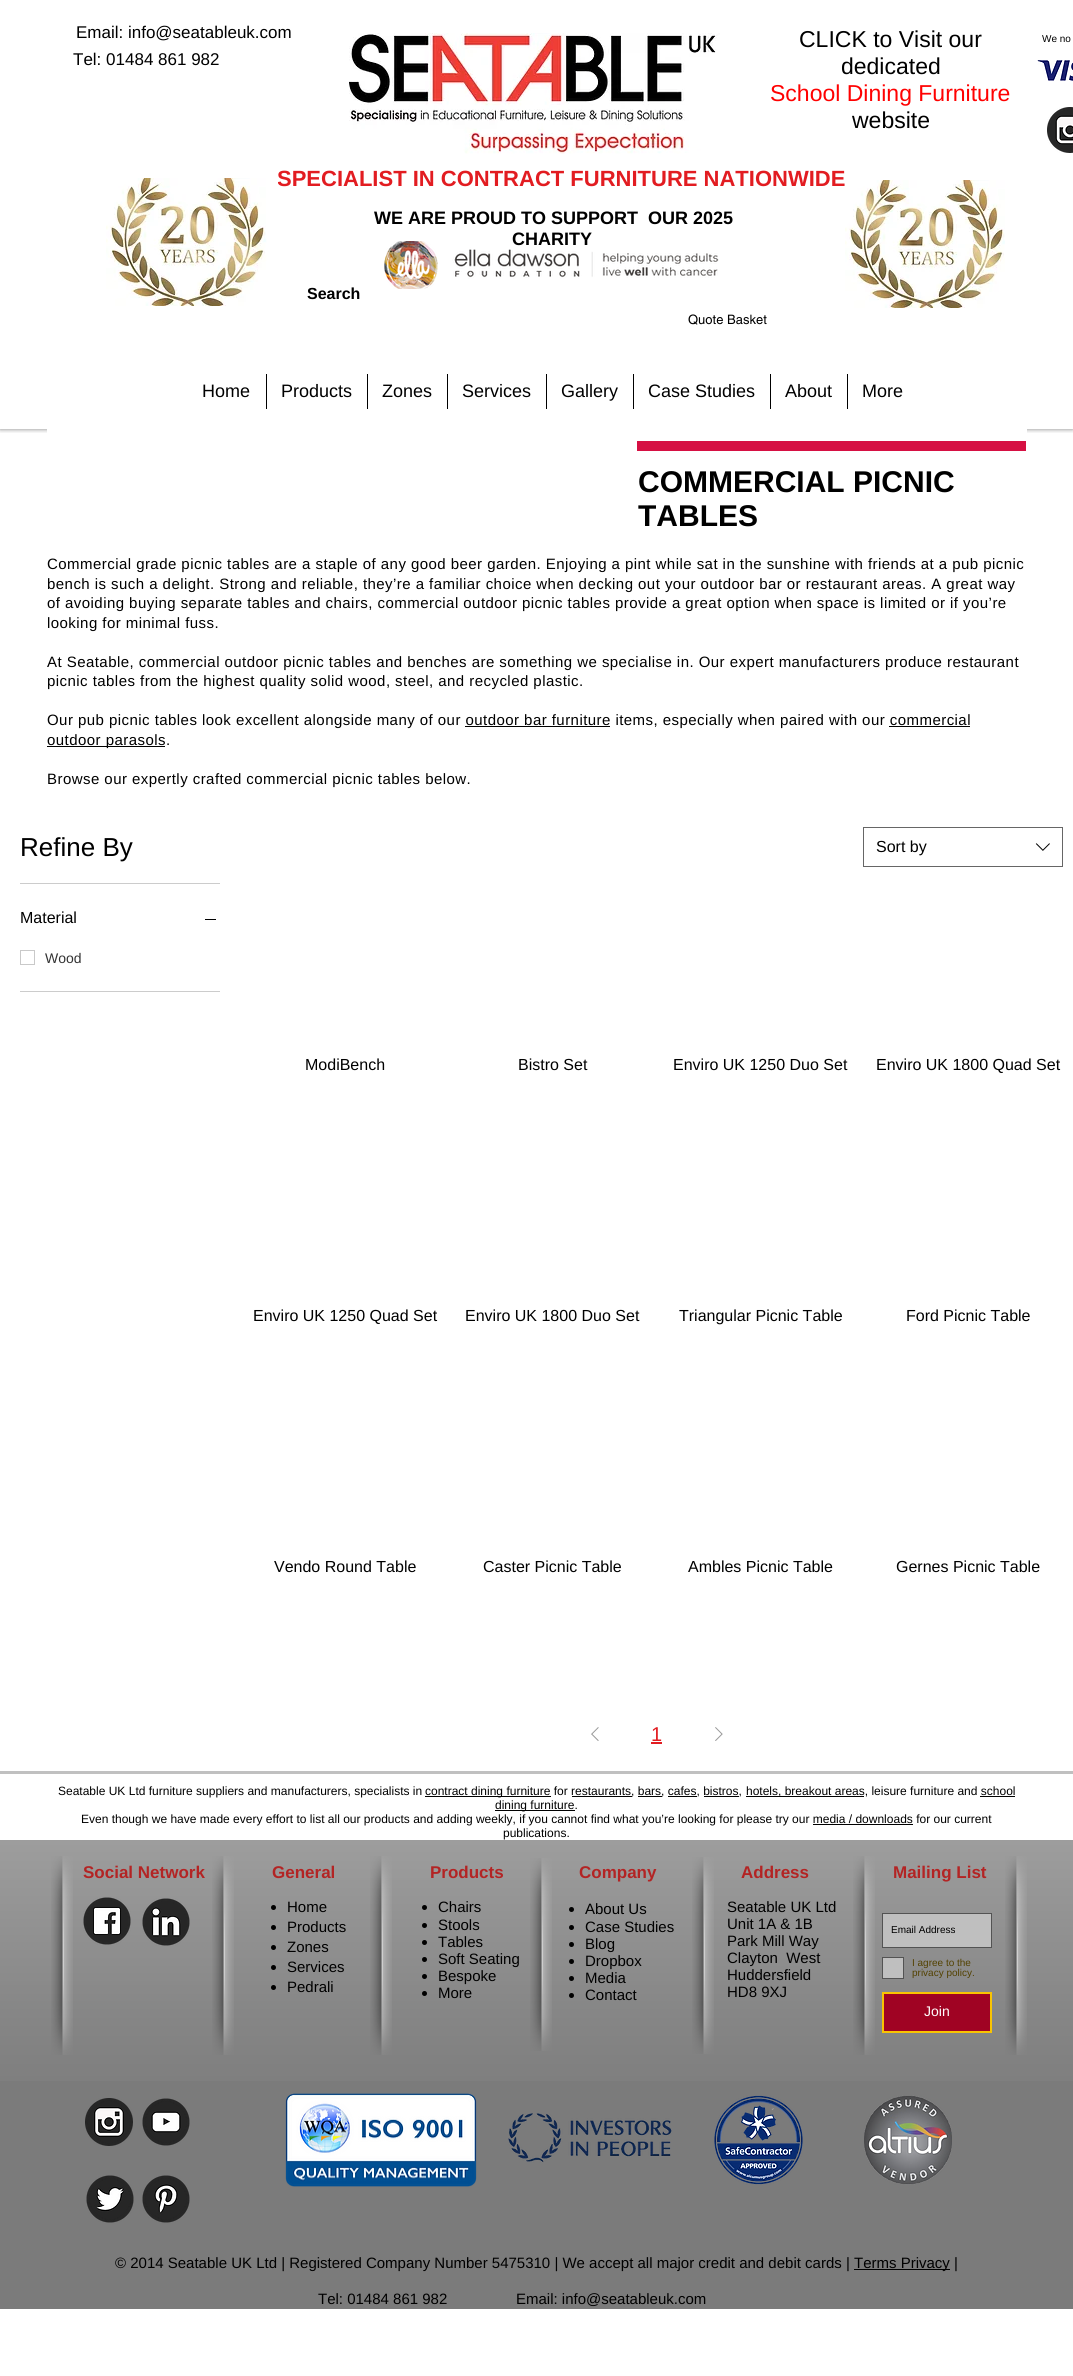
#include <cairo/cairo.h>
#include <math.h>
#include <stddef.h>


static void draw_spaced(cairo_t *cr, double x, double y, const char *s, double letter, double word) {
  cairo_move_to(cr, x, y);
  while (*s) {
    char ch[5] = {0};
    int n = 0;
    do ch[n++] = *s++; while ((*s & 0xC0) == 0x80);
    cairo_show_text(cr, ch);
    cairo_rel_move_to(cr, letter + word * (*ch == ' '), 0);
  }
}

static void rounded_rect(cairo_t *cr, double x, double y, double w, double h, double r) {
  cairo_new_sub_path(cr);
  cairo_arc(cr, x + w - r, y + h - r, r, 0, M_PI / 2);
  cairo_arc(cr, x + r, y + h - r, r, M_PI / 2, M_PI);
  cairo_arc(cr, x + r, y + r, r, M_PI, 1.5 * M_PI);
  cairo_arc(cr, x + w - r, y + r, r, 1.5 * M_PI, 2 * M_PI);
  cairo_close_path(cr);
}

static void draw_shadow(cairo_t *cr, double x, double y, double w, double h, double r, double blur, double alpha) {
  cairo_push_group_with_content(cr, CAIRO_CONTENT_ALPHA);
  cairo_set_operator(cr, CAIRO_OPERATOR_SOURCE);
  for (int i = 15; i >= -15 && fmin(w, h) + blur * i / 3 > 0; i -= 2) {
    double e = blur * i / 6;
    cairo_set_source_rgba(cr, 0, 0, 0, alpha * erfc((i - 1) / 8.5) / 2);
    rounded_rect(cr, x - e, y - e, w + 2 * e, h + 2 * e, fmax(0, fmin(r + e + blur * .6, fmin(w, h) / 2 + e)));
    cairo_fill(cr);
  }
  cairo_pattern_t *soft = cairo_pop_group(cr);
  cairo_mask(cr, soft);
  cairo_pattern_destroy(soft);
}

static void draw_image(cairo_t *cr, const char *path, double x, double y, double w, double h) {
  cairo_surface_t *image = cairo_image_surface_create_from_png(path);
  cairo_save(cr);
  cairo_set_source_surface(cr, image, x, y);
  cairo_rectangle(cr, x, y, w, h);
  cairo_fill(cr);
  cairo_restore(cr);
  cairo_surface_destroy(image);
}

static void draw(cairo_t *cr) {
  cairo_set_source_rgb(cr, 1, 1, 1);
  cairo_paint(cr);
  cairo_save(cr);
  cairo_rectangle(cr, 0, 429, 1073, 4);
  cairo_clip(cr);
  cairo_set_source_rgb(cr, 0, 0, 0);
  draw_shadow(cr, 0, 0, 1073, 429, 0, 2.5, 0.5);
  cairo_restore(cr);
  draw_image(cr, "images/1.png", 349, 33, 371, 121);
  draw_image(cr, "images/2.png", 1037, 60, 36, 21);
  draw_image(cr, "images/3.png", 1047, 107, 26, 46);
  draw_image(cr, "images/5.png", 845, 180, 160, 128);
  cairo_set_source_rgb(cr, 0, 0, 0);
  cairo_rectangle(cr, 266, 374, 1, 35);
  cairo_fill(cr);
  cairo_rectangle(cr, 367, 374, 1, 35);
  cairo_fill(cr);
  cairo_rectangle(cr, 447, 374, 1, 35);
  cairo_fill(cr);
  cairo_rectangle(cr, 546, 374, 1, 35);
  cairo_fill(cr);
  cairo_rectangle(cr, 633, 374, 1, 35);
  cairo_fill(cr);
  cairo_rectangle(cr, 770, 374, 1, 35);
  cairo_fill(cr);
  cairo_rectangle(cr, 847, 374, 1, 35);
  cairo_fill(cr);
  cairo_set_source_rgb(cr, 1, 1, 1);
  cairo_rectangle(cr, 47, 429, 980, 5);
  cairo_fill(cr);
  cairo_set_source_rgb(cr, 214 / 255.0, 16 / 255.0, 67 / 255.0);
  cairo_rectangle(cr, 637, 441, 389, 10);
  cairo_fill(cr);
  cairo_set_source_rgb(cr, 0, 0, 0);
  cairo_rectangle(cr, 465, 726, 145, 1);
  cairo_fill(cr);
  cairo_rectangle(cr, 889, 726, 81, 1);
  cairo_fill(cr);
  cairo_rectangle(cr, 47, 746, 118, 1);
  cairo_fill(cr);
  cairo_set_source_rgb(cr, 204 / 255.0, 204 / 255.0, 204 / 255.0);
  cairo_rectangle(cr, 20, 883, 200, 1);
  cairo_fill(cr);
  cairo_rectangle(cr, 20, 991, 200, 1);
  cairo_fill(cr);
  cairo_set_source_rgb(cr, 0, 0, 0);
  cairo_rectangle(cr, 205, 919, 11, 1);
  cairo_fill(cr);
  cairo_rectangle(cr, 20.5, 950.5, 14, 14);
  cairo_set_source_rgb(cr, 201 / 255.0, 201 / 255.0, 201 / 255.0);
  cairo_set_line_width(cr, 1);
  cairo_stroke(cr);
  cairo_rectangle(cr, 863.5, 827.5, 199, 39);
  cairo_set_source_rgb(cr, 102 / 255.0, 102 / 255.0, 102 / 255.0);
  cairo_stroke(cr);
  draw_image(cr, "images/7.png", 1035, 843, 15, 8);
  draw_image(cr, "images/8.png", 591, 1727, 8, 14);
  cairo_set_source_rgb(cr, 226 / 255.0, 28 / 255.0, 33 / 255.0);
  cairo_rectangle(cr, 651, 1742, 11, 2);
  cairo_fill(cr);
  draw_image(cr, "images/9.png", 715, 1727, 8, 14);
  cairo_set_source_rgb(cr, 192 / 255.0, 192 / 255.0, 192 / 255.0);
  cairo_rectangle(cr, 0, 1771, 1073, 3);
  cairo_fill(cr);
  cairo_set_source_rgb(cr, 0, 0, 0);
  cairo_rectangle(cr, 425, 1796, 126, 1);
  cairo_fill(cr);
  cairo_rectangle(cr, 572, 1796, 60, 1);
  cairo_fill(cr);
  cairo_rectangle(cr, 638, 1796, 24, 1);
  cairo_fill(cr);
  cairo_rectangle(cr, 668, 1796, 29, 1);
  cairo_fill(cr);
  cairo_rectangle(cr, 704, 1796, 35, 1);
  cairo_fill(cr);
  cairo_rectangle(cr, 746, 1796, 118, 1);
  cairo_fill(cr);
  cairo_rectangle(cr, 980, 1796, 35, 1);
  cairo_fill(cr);
  cairo_rectangle(cr, 495, 1810, 80, 1);
  cairo_fill(cr);
  cairo_rectangle(cr, 813, 1824, 100, 1);
  cairo_fill(cr);
  cairo_set_source_rgb(cr, 123 / 255.0, 123 / 255.0, 123 / 255.0);
  cairo_rectangle(cr, 0, 1840, 1073, 469);
  cairo_fill(cr);
  draw_image(cr, "images/10.png", 0, 1840, 1073, 241);
  draw_image(cr, "images/11.png", 51, 1856, 22, 96);
  draw_image(cr, "images/12.png", 51, 1952, 22, 8);
  draw_image(cr, "images/13.png", 51, 1960, 22, 95);
  draw_image(cr, "images/11.png", 212, 1856, 22, 96);
  draw_image(cr, "images/12.png", 212, 1952, 22, 8);
  draw_image(cr, "images/13.png", 212, 1960, 22, 95);
  draw_image(cr, "images/11.png", 370, 1856, 22, 96);
  draw_image(cr, "images/12.png", 370, 1952, 22, 8);
  draw_image(cr, "images/13.png", 370, 1960, 22, 95);
  draw_image(cr, "images/14.png", 530, 1858, 22, 96);
  draw_image(cr, "images/15.png", 530, 1954, 22, 2);
  draw_image(cr, "images/16.png", 530, 1956, 22, 95);
  draw_image(cr, "images/17.png", 692, 1857, 22, 96);
  draw_image(cr, "images/18.png", 692, 1953, 22, 6);
  draw_image(cr, "images/19.png", 692, 1959, 22, 95);
  draw_image(cr, "images/11.png", 853, 1856, 22, 96);
  draw_image(cr, "images/12.png", 853, 1952, 22, 8);
  draw_image(cr, "images/13.png", 853, 1960, 22, 95);
  draw_image(cr, "images/11.png", 1005, 1856, 22, 96);
  draw_image(cr, "images/12.png", 1005, 1952, 22, 8);
  draw_image(cr, "images/13.png", 1005, 1960, 22, 95);
  draw_image(cr, "images/20.png", 83, 1897, 48, 48);
  draw_image(cr, "images/21.png", 142, 1898, 48, 48);
  cairo_set_source_rgb(cr, 0, 0, 0);
  cairo_arc(cr, 273.5, 1907.5, 2.5, 0, 2 * M_PI);
  cairo_fill(cr);
  cairo_arc(cr, 273.5, 1927.5, 2.5, 0, 2 * M_PI);
  cairo_fill(cr);
  cairo_arc(cr, 273.5, 1947.5, 2.5, 0, 2 * M_PI);
  cairo_fill(cr);
  cairo_arc(cr, 273.5, 1967.5, 2.5, 0, 2 * M_PI);
  cairo_fill(cr);
  cairo_arc(cr, 273.5, 1987.5, 2.5, 0, 2 * M_PI);
  cairo_fill(cr);
  cairo_arc(cr, 424.5, 1907.5, 2.5, 0, 2 * M_PI);
  cairo_fill(cr);
  cairo_arc(cr, 424.5, 1925.5, 2.5, 0, 2 * M_PI);
  cairo_fill(cr);
  cairo_arc(cr, 424.5, 1942.5, 2.5, 0, 2 * M_PI);
  cairo_fill(cr);
  cairo_arc(cr, 424.5, 1959.5, 2.5, 0, 2 * M_PI);
  cairo_fill(cr);
  cairo_arc(cr, 424.5, 1976.5, 2.5, 0, 2 * M_PI);
  cairo_fill(cr);
  cairo_arc(cr, 424.5, 1993.5, 2.5, 0, 2 * M_PI);
  cairo_fill(cr);
  cairo_arc(cr, 571.5, 1909.5, 2.5, 0, 2 * M_PI);
  cairo_fill(cr);
  cairo_arc(cr, 571.5, 1927.5, 2.5, 0, 2 * M_PI);
  cairo_fill(cr);
  cairo_arc(cr, 571.5, 1944.5, 2.5, 0, 2 * M_PI);
  cairo_fill(cr);
  cairo_arc(cr, 571.5, 1961.5, 2.5, 0, 2 * M_PI);
  cairo_fill(cr);
  cairo_arc(cr, 571.5, 1978.5, 2.5, 0, 2 * M_PI);
  cairo_fill(cr);
  cairo_arc(cr, 571.5, 1995.5, 2.5, 0, 2 * M_PI);
  cairo_fill(cr);
  cairo_set_source_rgba(cr, 192 / 255.0, 192 / 255.0, 192 / 255.0, 0.98);
  cairo_rectangle(cr, 882.5, 1913.5, 109, 34);
  cairo_fill_preserve(cr);
  cairo_set_source_rgb(cr, 83 / 255.0, 83 / 255.0, 83 / 255.0);
  cairo_stroke(cr);
  cairo_set_source_rgba(cr, 192 / 255.0, 192 / 255.0, 192 / 255.0, 0.98);
  cairo_rectangle(cr, 882.5, 1957.5, 21, 21);
  cairo_fill_preserve(cr);
  cairo_set_source_rgb(cr, 83 / 255.0, 83 / 255.0, 83 / 255.0);
  cairo_stroke(cr);
  cairo_set_source_rgb(cr, 160 / 255.0, 3 / 255.0, 35 / 255.0);
  cairo_rectangle(cr, 883, 1993, 108, 39);
  cairo_fill_preserve(cr);
  cairo_set_source_rgb(cr, 249 / 255.0, 196 / 255.0, 2 / 255.0);
  cairo_set_line_width(cr, 2);
  cairo_stroke(cr);
  draw_image(cr, "images/22.png", 85, 2098, 48, 48);
  draw_image(cr, "images/23.png", 142, 2098, 48, 48);
  draw_image(cr, "images/24.png", 86, 2175, 48, 48);
  draw_image(cr, "images/25.png", 142, 2175, 48, 48);
  draw_image(cr, "images/26.png", 285, 2093, 192, 94);
  draw_image(cr, "images/27.png", 508, 2113, 164, 50);
  draw_image(cr, "images/28.png", 714, 2095, 89, 90);
  draw_image(cr, "images/29.png", 864, 2095, 88, 90);
  cairo_set_source_rgb(cr, 0, 0, 0);
  cairo_rectangle(cr, 854, 2269, 96, 1);
  cairo_fill(cr);
  cairo_select_font_face(cr, "Liberation Sans", CAIRO_FONT_SLANT_NORMAL, CAIRO_FONT_WEIGHT_NORMAL);
  cairo_set_font_size(cr, 17);
  cairo_move_to(cr, 76, 38);
  cairo_show_text(cr, "Email: info@seatableuk.com");
  cairo_set_font_size(cr, 23);
  cairo_move_to(cr, 799, 47);
  cairo_show_text(cr, "CLICK to Visit our");
  cairo_move_to(cr, 841, 74);
  cairo_show_text(cr, "dedicated");
  cairo_set_source_rgb(cr, 1, 1 / 255.0, 1 / 255.0);
  cairo_move_to(cr, 770, 101);
  cairo_show_text(cr, "School Dining Furniture");
  cairo_set_source_rgb(cr, 0, 0, 0);
  cairo_move_to(cr, 852, 128);
  cairo_show_text(cr, "website");
  cairo_set_font_size(cr, 10);
  cairo_move_to(cr, 1042, 42);
  cairo_show_text(cr, "We no");
  cairo_set_font_size(cr, 17);
  cairo_move_to(cr, 73, 65);
  cairo_show_text(cr, "Tel: 01484 861 982");
  cairo_select_font_face(cr, "Liberation Sans", CAIRO_FONT_SLANT_NORMAL, CAIRO_FONT_WEIGHT_BOLD);
  cairo_set_font_size(cr, 22);
  cairo_set_source_rgb(cr, 226 / 255.0, 28 / 255.0, 33 / 255.0);
  cairo_move_to(cr, 277, 186);
  cairo_show_text(cr, "SPECIALIST IN CONTRACT FURNITURE NATIONWIDE");
  draw_image(cr, "images/4.png", 106, 178, 172, 128);
  cairo_set_font_size(cr, 18);
  cairo_set_source_rgb(cr, 0, 0, 0);
  cairo_move_to(cr, 374, 224);
  cairo_show_text(cr, "WE ARE PROUD TO SUPPORT  OUR 2025");
  cairo_move_to(cr, 512, 245);
  cairo_show_text(cr, "CHARITY");
  draw_image(cr, "images/6.png", 384, 241, 335, 48);
  cairo_set_font_size(cr, 16);
  cairo_move_to(cr, 307, 299);
  cairo_show_text(cr, "Search");
  cairo_select_font_face(cr, "helvetica", CAIRO_FONT_SLANT_NORMAL, CAIRO_FONT_WEIGHT_NORMAL);
  cairo_set_font_size(cr, 13);
  cairo_move_to(cr, 688, 324);
  cairo_show_text(cr, "Quote Basket");
  cairo_select_font_face(cr, "Liberation Sans", CAIRO_FONT_SLANT_NORMAL, CAIRO_FONT_WEIGHT_NORMAL);
  cairo_set_font_size(cr, 18);
  cairo_move_to(cr, 202, 397);
  cairo_show_text(cr, "Home");
  cairo_move_to(cr, 281, 397);
  cairo_show_text(cr, "Products");
  cairo_move_to(cr, 382, 397);
  cairo_show_text(cr, "Zones");
  cairo_move_to(cr, 462, 397);
  cairo_show_text(cr, "Services");
  cairo_move_to(cr, 561, 397);
  cairo_show_text(cr, "Gallery");
  cairo_move_to(cr, 648, 397);
  cairo_show_text(cr, "Case Studies");
  cairo_move_to(cr, 785, 397);
  cairo_show_text(cr, "About");
  cairo_move_to(cr, 862, 397);
  cairo_show_text(cr, "More");
  cairo_select_font_face(cr, "Liberation Sans", CAIRO_FONT_SLANT_NORMAL, CAIRO_FONT_WEIGHT_BOLD);
  cairo_set_font_size(cr, 30);
  cairo_move_to(cr, 638, 492);
  cairo_show_text(cr, "COMMERCIAL PICNIC");
  cairo_move_to(cr, 638, 526);
  cairo_show_text(cr, "TABLES");
  cairo_select_font_face(cr, "Liberation Sans", CAIRO_FONT_SLANT_NORMAL, CAIRO_FONT_WEIGHT_NORMAL);
  cairo_set_font_size(cr, 15);
  draw_spaced(cr, 47, 569, "Commercial grade picnic tables are a staple of any good beer garden. Enjoying a pint while sat in the sunshine with friends at a pub picnic", 0.45, 0);
  draw_spaced(cr, 47, 589, "bench is such a delight. Strong and reliable, they’re a familiar choice when decking out your outdoor bar or restaurant areas. A great way", 0.45, 0);
  draw_spaced(cr, 47, 608, "of avoiding buying separate tables and chairs, commercial outdoor picnic tables provide a great option when space is limited or if you’re", 0.45, 0);
  draw_spaced(cr, 47, 628, "looking for minimal fuss.", 0.45, 0);
  draw_spaced(cr, 47, 667, "At Seatable, commercial outdoor picnic tables and benches are something we specialise in. Our expert manufacturers produce restaurant", 0.45, 0);
  draw_spaced(cr, 47, 686, "picnic tables from the highest quality solid wood, steel, and recycled plastic.", 0.45, 0);
  draw_spaced(cr, 47, 725, "Our pub picnic tables look excellent alongside many of our outdoor bar furniture items, especially when paired with our commercial", 0.45, 0);
  draw_spaced(cr, 47, 745, "outdoor parasols.", 0.45, 0);
  draw_spaced(cr, 47, 784, "Browse our expertly crafted commercial picnic tables below.", 0.45, 0);
  cairo_set_font_size(cr, 26);
  cairo_move_to(cr, 20, 856);
  cairo_show_text(cr, "Refine By");
  cairo_set_font_size(cr, 16);
  cairo_move_to(cr, 20, 923);
  cairo_show_text(cr, "Material");
  cairo_set_font_size(cr, 14);
  cairo_set_source_rgb(cr, 51 / 255.0, 51 / 255.0, 51 / 255.0);
  cairo_move_to(cr, 45, 963);
  cairo_show_text(cr, "Wood");
  cairo_set_font_size(cr, 16);
  cairo_set_source_rgb(cr, 0, 0, 0);
  cairo_move_to(cr, 876, 852);
  cairo_show_text(cr, "Sort by");
  cairo_move_to(cr, 305, 1070);
  cairo_show_text(cr, "ModiBench");
  cairo_move_to(cr, 518, 1070);
  cairo_show_text(cr, "Bistro Set");
  cairo_move_to(cr, 673, 1070);
  cairo_show_text(cr, "Enviro UK 1250 Duo Set");
  cairo_move_to(cr, 876, 1070);
  cairo_show_text(cr, "Enviro UK 1800 Quad Set");
  cairo_move_to(cr, 253, 1321);
  cairo_show_text(cr, "Enviro UK 1250 Quad Set");
  cairo_move_to(cr, 465, 1321);
  cairo_show_text(cr, "Enviro UK 1800 Duo Set");
  cairo_move_to(cr, 679, 1321);
  cairo_show_text(cr, "Triangular Picnic Table");
  cairo_move_to(cr, 906, 1321);
  cairo_show_text(cr, "Ford Picnic Table");
  cairo_move_to(cr, 274, 1572);
  cairo_show_text(cr, "Vendo Round Table");
  cairo_move_to(cr, 483, 1572);
  cairo_show_text(cr, "Caster Picnic Table");
  cairo_move_to(cr, 688, 1572);
  cairo_show_text(cr, "Ambles Picnic Table");
  cairo_move_to(cr, 896, 1572);
  cairo_show_text(cr, "Gernes Picnic Table");
  cairo_set_font_size(cr, 20);
  cairo_set_source_rgb(cr, 226 / 255.0, 28 / 255.0, 33 / 255.0);
  cairo_move_to(cr, 651, 1741);
  cairo_show_text(cr, "1");
  cairo_set_font_size(cr, 12);
  cairo_set_source_rgb(cr, 0, 0, 0);
  cairo_move_to(cr, 58, 1795);
  cairo_show_text(cr, "Seatable UK Ltd furniture suppliers and manufacturers, specialists in");
  cairo_move_to(cr, 425, 1795);
  cairo_show_text(cr, "contract dining furniture for restaurants, bars, cafes, bistros,");
  cairo_move_to(cr, 746, 1795);
  cairo_show_text(cr, "hotels, breakout areas, leisure furniture and school");
  cairo_move_to(cr, 495, 1809);
  cairo_show_text(cr, "dining furniture.");
  cairo_move_to(cr, 81, 1823);
  cairo_show_text(cr, "Even though we have made every effort to list all our products and adding weekly, if you cannot find what you’re looking for please try our media / downloads for our current");
  cairo_move_to(cr, 503, 1837);
  cairo_show_text(cr, "publications.");
  cairo_select_font_face(cr, "Liberation Sans", CAIRO_FONT_SLANT_NORMAL, CAIRO_FONT_WEIGHT_BOLD);
  cairo_set_font_size(cr, 17);
  cairo_set_source_rgb(cr, 179 / 255.0, 36 / 255.0, 36 / 255.0);
  cairo_move_to(cr, 83, 1878);
  cairo_show_text(cr, "Social Network");
  cairo_move_to(cr, 272, 1878);
  cairo_show_text(cr, "General");
  cairo_move_to(cr, 430, 1878);
  cairo_show_text(cr, "Products");
  cairo_move_to(cr, 579, 1878);
  cairo_show_text(cr, "Company");
  cairo_move_to(cr, 741, 1878);
  cairo_show_text(cr, "Address");
  cairo_move_to(cr, 893, 1878);
  cairo_show_text(cr, "Mailing List");
  cairo_select_font_face(cr, "Liberation Sans", CAIRO_FONT_SLANT_NORMAL, CAIRO_FONT_WEIGHT_NORMAL);
  cairo_set_font_size(cr, 15);
  cairo_set_source_rgb(cr, 0, 0, 0);
  cairo_move_to(cr, 287, 1912);
  cairo_show_text(cr, "Home");
  cairo_move_to(cr, 287, 1932);
  cairo_show_text(cr, "Products");
  cairo_move_to(cr, 287, 1952);
  cairo_show_text(cr, "Zones");
  cairo_move_to(cr, 287, 1972);
  cairo_show_text(cr, "Services");
  cairo_move_to(cr, 287, 1992);
  cairo_show_text(cr, "Pedrali");
  cairo_move_to(cr, 438, 1912);
  cairo_show_text(cr, "Chairs");
  cairo_move_to(cr, 438, 1930);
  cairo_show_text(cr, "Stools");
  cairo_move_to(cr, 438, 1947);
  cairo_show_text(cr, "Tables");
  cairo_move_to(cr, 438, 1964);
  cairo_show_text(cr, "Soft Seating");
  cairo_move_to(cr, 438, 1981);
  cairo_show_text(cr, "Bespoke");
  cairo_move_to(cr, 438, 1998);
  cairo_show_text(cr, "More");
  cairo_move_to(cr, 585, 1914);
  cairo_show_text(cr, "About Us");
  cairo_move_to(cr, 585, 1932);
  cairo_show_text(cr, "Case Studies");
  cairo_move_to(cr, 585, 1949);
  cairo_show_text(cr, "Blog");
  cairo_move_to(cr, 585, 1966);
  cairo_show_text(cr, "Dropbox");
  cairo_move_to(cr, 585, 1983);
  cairo_show_text(cr, "Media");
  cairo_move_to(cr, 585, 2000);
  cairo_show_text(cr, "Contact");
  cairo_move_to(cr, 727, 1912);
  cairo_show_text(cr, "Seatable UK Ltd");
  cairo_move_to(cr, 727, 1929);
  cairo_show_text(cr, "Unit 1A & 1B");
  cairo_move_to(cr, 727, 1946);
  cairo_show_text(cr, "Park Mill Way");
  cairo_move_to(cr, 727, 1963);
  cairo_show_text(cr, "Clayton  West");
  cairo_move_to(cr, 727, 1980);
  cairo_show_text(cr, "Huddersfield");
  cairo_move_to(cr, 727, 1997);
  cairo_show_text(cr, "HD8 9XJ");
  cairo_set_font_size(cr, 10);
  cairo_move_to(cr, 891, 1933);
  cairo_show_text(cr, "Email Address");
  cairo_set_source_rgb(cr, 83 / 255.0, 65 / 255.0, 0);
  cairo_move_to(cr, 912, 1966);
  cairo_show_text(cr, "I agree to the");
  cairo_move_to(cr, 912, 1976);
  cairo_show_text(cr, "privacy policy.");
  cairo_set_font_size(cr, 14);
  cairo_set_source_rgb(cr, 1, 1, 1);
  cairo_move_to(cr, 924, 2016);
  cairo_show_text(cr, "Join");
  cairo_set_font_size(cr, 15);
  cairo_set_source_rgb(cr, 0, 0, 0);
  cairo_move_to(cr, 115, 2268);
  cairo_show_text(cr, "© 2014 Seatable UK Ltd | Registered Company Number 5475310 | We accept all major credit and debit cards |");
  cairo_move_to(cr, 854, 2268);
  cairo_show_text(cr, "Terms Privacy |");
  cairo_move_to(cr, 318, 2304);
  cairo_show_text(cr, "Tel: 01484 861 982");
  cairo_move_to(cr, 516, 2304);
  cairo_show_text(cr, "Email: info@seatableuk.com");
}

int main(void) {
  cairo_surface_t *surface = cairo_image_surface_create(CAIRO_FORMAT_RGB24, 1073, 2376);
  cairo_t *cr = cairo_create(surface);
  cairo_font_options_t *options = cairo_font_options_create();
  cairo_font_options_set_hint_metrics(options, CAIRO_HINT_METRICS_OFF);
  cairo_font_options_set_hint_style(options, CAIRO_HINT_STYLE_NONE);
  cairo_set_font_options(cr, options);
  cairo_set_miter_limit(cr, 4);
  draw(cr);
  cairo_surface_write_to_png(surface, "out.png");
  cairo_font_options_destroy(options);
  cairo_destroy(cr);
  cairo_surface_destroy(surface);
  return 0;
}
